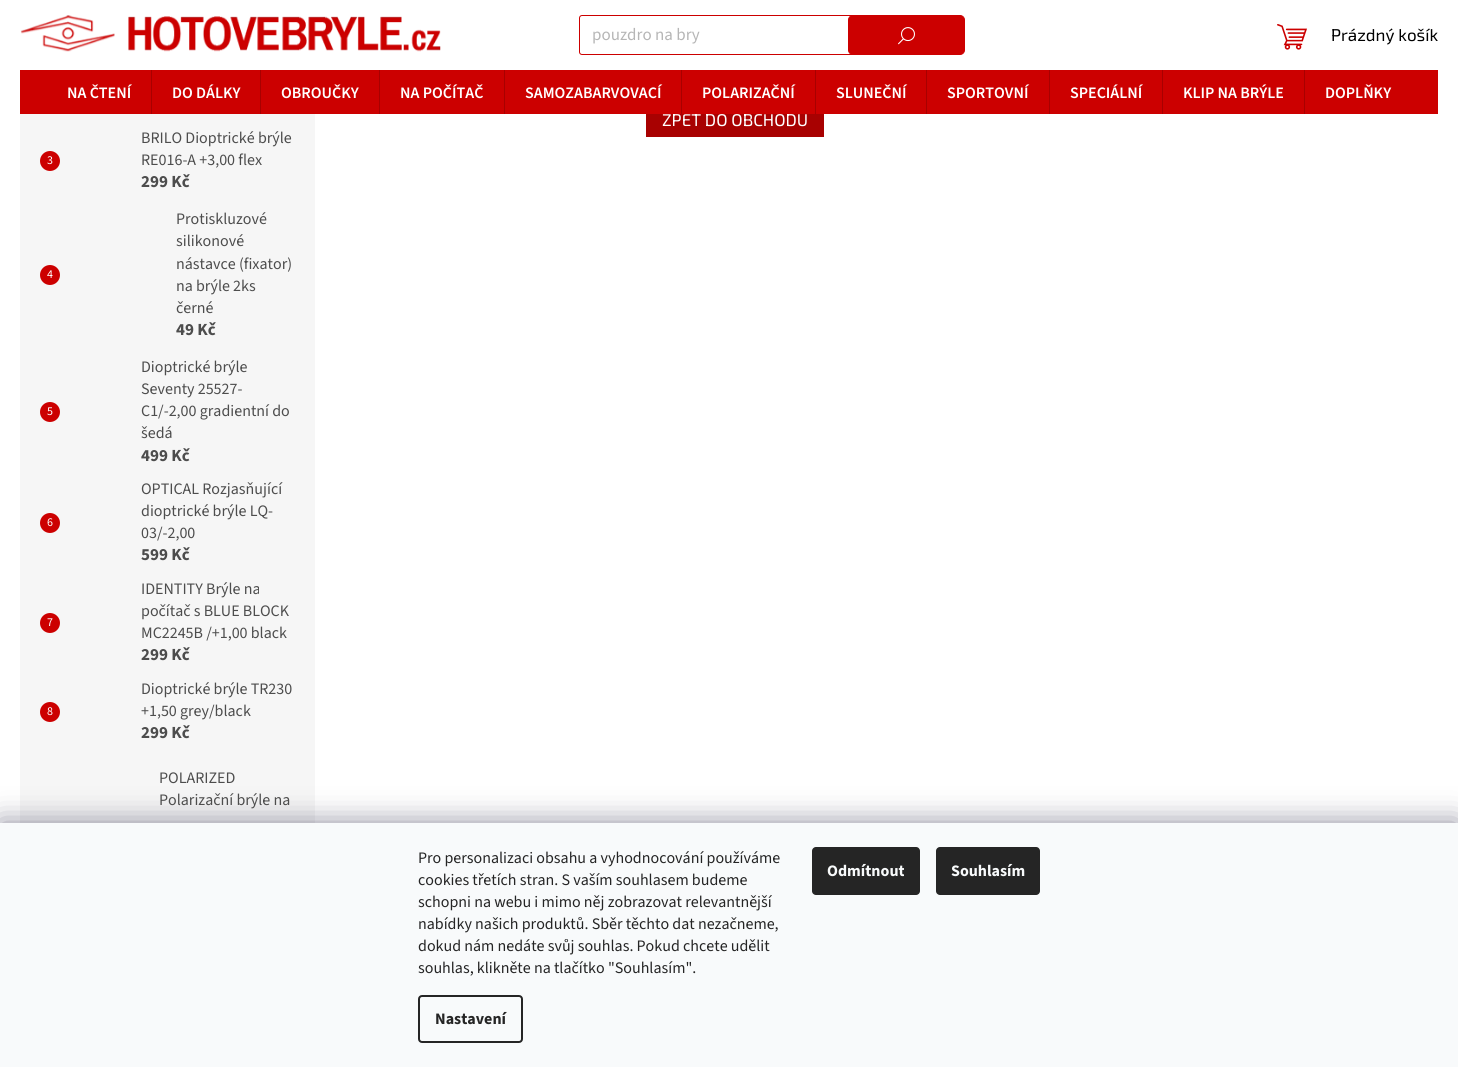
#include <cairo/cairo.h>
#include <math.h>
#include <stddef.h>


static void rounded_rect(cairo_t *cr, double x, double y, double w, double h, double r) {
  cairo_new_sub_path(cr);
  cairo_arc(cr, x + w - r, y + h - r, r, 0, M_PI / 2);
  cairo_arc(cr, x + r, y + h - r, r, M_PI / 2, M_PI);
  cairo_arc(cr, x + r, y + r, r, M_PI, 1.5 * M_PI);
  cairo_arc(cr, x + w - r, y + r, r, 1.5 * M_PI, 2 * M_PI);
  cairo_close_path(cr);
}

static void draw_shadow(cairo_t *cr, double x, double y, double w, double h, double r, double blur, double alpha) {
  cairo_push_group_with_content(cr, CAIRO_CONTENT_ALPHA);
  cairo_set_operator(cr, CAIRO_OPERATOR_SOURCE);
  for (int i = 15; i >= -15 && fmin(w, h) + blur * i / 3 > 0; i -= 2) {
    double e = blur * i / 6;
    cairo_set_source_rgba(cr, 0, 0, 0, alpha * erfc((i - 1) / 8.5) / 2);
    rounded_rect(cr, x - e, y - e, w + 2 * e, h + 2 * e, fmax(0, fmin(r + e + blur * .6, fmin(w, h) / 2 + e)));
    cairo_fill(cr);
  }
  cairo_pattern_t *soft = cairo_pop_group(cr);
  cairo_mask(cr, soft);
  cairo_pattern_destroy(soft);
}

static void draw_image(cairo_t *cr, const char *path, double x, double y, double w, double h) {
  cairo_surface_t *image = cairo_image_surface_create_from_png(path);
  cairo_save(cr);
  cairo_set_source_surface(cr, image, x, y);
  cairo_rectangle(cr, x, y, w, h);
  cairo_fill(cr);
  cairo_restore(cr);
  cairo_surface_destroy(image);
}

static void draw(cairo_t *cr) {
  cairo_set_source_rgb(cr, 1, 1, 1);
  cairo_paint(cr);
  draw_image(cr, "images/1.png", 20, 15, 421, 37);
  rounded_rect(cr, 579.5, 15.5, 299, 39, 2.5);
  cairo_set_source_rgb(cr, 204 / 255.0, 0, 0);
  cairo_set_line_width(cr, 1);
  cairo_stroke(cr);
  rounded_rect(cr, 848.5, 15.5, 116, 39, 4.5);
  cairo_fill_preserve(cr);
  cairo_stroke(cr);
  draw_image(cr, "images/2.png", 898, 27, 17, 18);
  draw_image(cr, "images/3.png", 1277, 24, 30, 26);
  cairo_set_source_rgb(cr, 168 / 255.0, 1 / 255.0, 1 / 255.0);
  cairo_rectangle(cr, 646, 114, 178, 23);
  cairo_fill(cr);
  cairo_set_source_rgb(cr, 246 / 255.0, 246 / 255.0, 246 / 255.0);
  cairo_rectangle(cr, 20, 114, 295, 709);
  cairo_fill(cr);
  cairo_set_source_rgb(cr, 204 / 255.0, 0, 0);
  cairo_arc(cr, 50, 161, 10, 0, 2 * M_PI);
  cairo_fill(cr);
  cairo_arc(cr, 50, 275, 10, 0, 2 * M_PI);
  cairo_fill(cr);
  cairo_arc(cr, 50, 412, 10, 0, 2 * M_PI);
  cairo_fill(cr);
  cairo_arc(cr, 50, 523, 10, 0, 2 * M_PI);
  cairo_fill(cr);
  cairo_arc(cr, 50, 623, 10, 0, 2 * M_PI);
  cairo_fill(cr);
  cairo_arc(cr, 50, 712, 10, 0, 2 * M_PI);
  cairo_fill(cr);
  cairo_set_source_rgb(cr, 27 / 255.0, 25 / 255.0, 57 / 255.0);
  draw_shadow(cr, 0, 823, 1458, 244, 0, 15, 0.5);
  cairo_set_source_rgb(cr, 248 / 255.0, 250 / 255.0, 251 / 255.0);
  cairo_rectangle(cr, 0, 823, 1458, 244);
  cairo_fill(cr);
  rounded_rect(cr, 419, 996, 103, 46, 3);
  cairo_set_source_rgb(cr, 37 / 255.0, 37 / 255.0, 37 / 255.0);
  cairo_set_line_width(cr, 2);
  cairo_stroke(cr);
  rounded_rect(cr, 812, 847, 108, 48, 4);
  cairo_fill(cr);
  rounded_rect(cr, 936, 847, 104, 48, 4);
  cairo_fill(cr);
  cairo_select_font_face(cr, "Source Sans 3", CAIRO_FONT_SLANT_NORMAL, CAIRO_FONT_WEIGHT_NORMAL);
  cairo_set_font_size(cr, 17);
  cairo_set_source_rgb(cr, 182 / 255.0, 182 / 255.0, 182 / 255.0);
  cairo_move_to(cr, 592, 40);
  cairo_show_text(cr, "pouzdro na bry");
  cairo_select_font_face(cr, "Exo 2", CAIRO_FONT_SLANT_NORMAL, CAIRO_FONT_WEIGHT_NORMAL);
  cairo_set_source_rgb(cr, 0, 0, 0);
  cairo_move_to(cr, 1331, 41);
  cairo_show_text(cr, "Prázdný košík");
  cairo_set_source_rgb(cr, 1, 1, 1);
  cairo_move_to(cr, 662, 126);
  cairo_show_text(cr, "ZPĚT DO OBCHODU");
  cairo_set_source_rgb(cr, 204 / 255.0, 0, 0);
  cairo_rectangle(cr, 20, 70, 1418, 44);
  cairo_fill(cr);
  cairo_select_font_face(cr, "Source Sans 3 SemiBold", CAIRO_FONT_SLANT_NORMAL, CAIRO_FONT_WEIGHT_NORMAL);
  cairo_set_font_size(cr, 16);
  cairo_set_source_rgb(cr, 1, 1, 1);
  cairo_move_to(cr, 1325, 98);
  cairo_show_text(cr, "DOPLŇKY");
  cairo_set_source_rgb(cr, 168 / 255.0, 0, 0);
  cairo_rectangle(cr, 1304, 70, 1, 44);
  cairo_fill(cr);
  cairo_set_source_rgb(cr, 1, 1, 1);
  cairo_move_to(cr, 1183, 98);
  cairo_show_text(cr, "KLIP NA BRÝLE");
  cairo_set_source_rgb(cr, 168 / 255.0, 0, 0);
  cairo_rectangle(cr, 1162, 70, 1, 44);
  cairo_fill(cr);
  cairo_set_source_rgb(cr, 1, 1, 1);
  cairo_move_to(cr, 1070, 98);
  cairo_show_text(cr, "SPECIÁLNÍ");
  cairo_set_source_rgb(cr, 168 / 255.0, 0, 0);
  cairo_rectangle(cr, 1049, 70, 1, 44);
  cairo_fill(cr);
  cairo_set_source_rgb(cr, 1, 1, 1);
  cairo_move_to(cr, 947, 98);
  cairo_show_text(cr, "SPORTOVNÍ");
  cairo_set_source_rgb(cr, 168 / 255.0, 0, 0);
  cairo_rectangle(cr, 926, 70, 1, 44);
  cairo_fill(cr);
  cairo_set_source_rgb(cr, 1, 1, 1);
  cairo_move_to(cr, 836, 98);
  cairo_show_text(cr, "SLUNEČNÍ");
  cairo_set_source_rgb(cr, 168 / 255.0, 0, 0);
  cairo_rectangle(cr, 815, 70, 1, 44);
  cairo_fill(cr);
  cairo_set_source_rgb(cr, 1, 1, 1);
  cairo_move_to(cr, 702, 98);
  cairo_show_text(cr, "POLARIZAČNÍ");
  cairo_set_source_rgb(cr, 168 / 255.0, 0, 0);
  cairo_rectangle(cr, 681, 70, 1, 44);
  cairo_fill(cr);
  cairo_set_source_rgb(cr, 1, 1, 1);
  cairo_move_to(cr, 525, 98);
  cairo_show_text(cr, "SAMOZABARVOVACÍ");
  cairo_set_source_rgb(cr, 168 / 255.0, 0, 0);
  cairo_rectangle(cr, 504, 70, 1, 44);
  cairo_fill(cr);
  cairo_set_source_rgb(cr, 1, 1, 1);
  cairo_move_to(cr, 400, 98);
  cairo_show_text(cr, "NA POČÍTAČ");
  cairo_set_source_rgb(cr, 168 / 255.0, 0, 0);
  cairo_rectangle(cr, 379, 70, 1, 44);
  cairo_fill(cr);
  cairo_set_source_rgb(cr, 1, 1, 1);
  cairo_move_to(cr, 281, 98);
  cairo_show_text(cr, "OBROUČKY");
  cairo_set_source_rgb(cr, 168 / 255.0, 0, 0);
  cairo_rectangle(cr, 260, 70, 1, 44);
  cairo_fill(cr);
  cairo_set_source_rgb(cr, 1, 1, 1);
  cairo_move_to(cr, 172, 98);
  cairo_show_text(cr, "DO DÁLKY");
  cairo_set_source_rgb(cr, 168 / 255.0, 0, 0);
  cairo_rectangle(cr, 151, 70, 1, 44);
  cairo_fill(cr);
  cairo_set_source_rgb(cr, 1, 1, 1);
  cairo_move_to(cr, 67, 98);
  cairo_show_text(cr, "NA ČTENÍ");
  cairo_select_font_face(cr, "Source Sans 3", CAIRO_FONT_SLANT_NORMAL, CAIRO_FONT_WEIGHT_NORMAL);
  cairo_set_font_size(cr, 12);
  cairo_move_to(cr, 47, 164);
  cairo_show_text(cr, "3");
  cairo_set_font_size(cr, 16);
  cairo_set_source_rgb(cr, 77 / 255.0, 77 / 255.0, 77 / 255.0);
  cairo_move_to(cr, 141, 143);
  cairo_show_text(cr, "BRILO Dioptrické brýle");
  cairo_move_to(cr, 141, 165);
  cairo_show_text(cr, "RE016-A +3,00 flex");
  cairo_select_font_face(cr, "Source Sans 3", CAIRO_FONT_SLANT_NORMAL, CAIRO_FONT_WEIGHT_BOLD);
  cairo_set_font_size(cr, 17);
  cairo_move_to(cr, 141, 187);
  cairo_show_text(cr, "299 Kč");
  cairo_select_font_face(cr, "Source Sans 3", CAIRO_FONT_SLANT_NORMAL, CAIRO_FONT_WEIGHT_NORMAL);
  cairo_set_font_size(cr, 12);
  cairo_set_source_rgb(cr, 1, 1, 1);
  cairo_move_to(cr, 47, 278);
  cairo_show_text(cr, "4");
  cairo_set_font_size(cr, 16);
  cairo_set_source_rgb(cr, 77 / 255.0, 77 / 255.0, 77 / 255.0);
  cairo_move_to(cr, 176, 224);
  cairo_show_text(cr, "Protiskluzové");
  cairo_move_to(cr, 176, 246);
  cairo_show_text(cr, "silikonové");
  cairo_move_to(cr, 176, 269);
  cairo_show_text(cr, "nástavce (fixator)");
  cairo_move_to(cr, 176, 291);
  cairo_show_text(cr, "na brýle 2ks");
  cairo_move_to(cr, 176, 313);
  cairo_show_text(cr, "černé");
  cairo_select_font_face(cr, "Source Sans 3", CAIRO_FONT_SLANT_NORMAL, CAIRO_FONT_WEIGHT_BOLD);
  cairo_set_font_size(cr, 17);
  cairo_move_to(cr, 176, 335);
  cairo_show_text(cr, "49 Kč");
  cairo_select_font_face(cr, "Source Sans 3", CAIRO_FONT_SLANT_NORMAL, CAIRO_FONT_WEIGHT_NORMAL);
  cairo_set_font_size(cr, 12);
  cairo_set_source_rgb(cr, 1, 1, 1);
  cairo_move_to(cr, 47, 415);
  cairo_show_text(cr, "5");
  cairo_set_font_size(cr, 16);
  cairo_set_source_rgb(cr, 77 / 255.0, 77 / 255.0, 77 / 255.0);
  cairo_move_to(cr, 141, 372);
  cairo_show_text(cr, "Dioptrické brýle");
  cairo_move_to(cr, 141, 394);
  cairo_show_text(cr, "Seventy 25527-");
  cairo_move_to(cr, 141, 416);
  cairo_show_text(cr, "C1/-2,00 gradientní do");
  cairo_move_to(cr, 141, 438);
  cairo_show_text(cr, "šedá");
  cairo_select_font_face(cr, "Source Sans 3", CAIRO_FONT_SLANT_NORMAL, CAIRO_FONT_WEIGHT_BOLD);
  cairo_set_font_size(cr, 17);
  cairo_move_to(cr, 141, 461);
  cairo_show_text(cr, "499 Kč");
  cairo_select_font_face(cr, "Source Sans 3", CAIRO_FONT_SLANT_NORMAL, CAIRO_FONT_WEIGHT_NORMAL);
  cairo_set_font_size(cr, 12);
  cairo_set_source_rgb(cr, 1, 1, 1);
  cairo_move_to(cr, 47, 526);
  cairo_show_text(cr, "6");
  cairo_set_font_size(cr, 16);
  cairo_set_source_rgb(cr, 77 / 255.0, 77 / 255.0, 77 / 255.0);
  cairo_move_to(cr, 141, 494);
  cairo_show_text(cr, "OPTICAL Rozjasňující");
  cairo_move_to(cr, 141, 516);
  cairo_show_text(cr, "dioptrické brýle LQ-");
  cairo_move_to(cr, 141, 538);
  cairo_show_text(cr, "03/-2,00");
  cairo_select_font_face(cr, "Source Sans 3", CAIRO_FONT_SLANT_NORMAL, CAIRO_FONT_WEIGHT_BOLD);
  cairo_set_font_size(cr, 17);
  cairo_move_to(cr, 141, 560);
  cairo_show_text(cr, "599 Kč");
  cairo_select_font_face(cr, "Source Sans 3", CAIRO_FONT_SLANT_NORMAL, CAIRO_FONT_WEIGHT_NORMAL);
  cairo_set_font_size(cr, 12);
  cairo_set_source_rgb(cr, 1, 1, 1);
  cairo_move_to(cr, 47, 626);
  cairo_show_text(cr, "7");
  cairo_set_font_size(cr, 16);
  cairo_set_source_rgb(cr, 77 / 255.0, 77 / 255.0, 77 / 255.0);
  cairo_move_to(cr, 141, 594);
  cairo_show_text(cr, "IDENTITY Brýle na");
  cairo_move_to(cr, 141, 616);
  cairo_show_text(cr, "počítač s BLUE BLOCK");
  cairo_move_to(cr, 141, 638);
  cairo_show_text(cr, "MC2245B /+1,00 black");
  cairo_select_font_face(cr, "Source Sans 3", CAIRO_FONT_SLANT_NORMAL, CAIRO_FONT_WEIGHT_BOLD);
  cairo_set_font_size(cr, 17);
  cairo_move_to(cr, 141, 660);
  cairo_show_text(cr, "299 Kč");
  cairo_select_font_face(cr, "Source Sans 3", CAIRO_FONT_SLANT_NORMAL, CAIRO_FONT_WEIGHT_NORMAL);
  cairo_set_font_size(cr, 12);
  cairo_set_source_rgb(cr, 1, 1, 1);
  cairo_move_to(cr, 47, 715);
  cairo_show_text(cr, "8");
  cairo_set_font_size(cr, 16);
  cairo_set_source_rgb(cr, 77 / 255.0, 77 / 255.0, 77 / 255.0);
  cairo_move_to(cr, 141, 694);
  cairo_show_text(cr, "Dioptrické brýle TR230");
  cairo_move_to(cr, 141, 716);
  cairo_show_text(cr, "+1,50 grey/black");
  cairo_select_font_face(cr, "Source Sans 3", CAIRO_FONT_SLANT_NORMAL, CAIRO_FONT_WEIGHT_BOLD);
  cairo_set_font_size(cr, 17);
  cairo_move_to(cr, 141, 738);
  cairo_show_text(cr, "299 Kč");
  cairo_select_font_face(cr, "Source Sans 3", CAIRO_FONT_SLANT_NORMAL, CAIRO_FONT_WEIGHT_NORMAL);
  cairo_set_font_size(cr, 16);
  cairo_move_to(cr, 159, 783);
  cairo_show_text(cr, "POLARIZED");
  cairo_move_to(cr, 159, 805);
  cairo_show_text(cr, "Polarizační brýle na");
  cairo_set_source_rgb(cr, 37 / 255.0, 37 / 255.0, 37 / 255.0);
  cairo_move_to(cr, 418, 863);
  cairo_show_text(cr, "Pro personalizaci obsahu a vyhodnocování používáme");
  cairo_move_to(cr, 418, 885);
  cairo_show_text(cr, "cookies třetích stran. S vaším souhlasem budeme");
  cairo_move_to(cr, 418, 907);
  cairo_show_text(cr, "schopni na webu i mimo něj zobrazovat relevantnější");
  cairo_move_to(cr, 418, 929);
  cairo_show_text(cr, "nabídky našich produktů. Sběr těchto dat nezačneme,");
  cairo_move_to(cr, 418, 951);
  cairo_show_text(cr, "dokud nám nedáte svůj souhlas. Pokud chcete udělit");
  cairo_move_to(cr, 418, 973);
  cairo_show_text(cr, "souhlas, klikněte na tlačítko \"Souhlasím\".");
  cairo_select_font_face(cr, "Source Sans 3", CAIRO_FONT_SLANT_NORMAL, CAIRO_FONT_WEIGHT_BOLD);
  cairo_move_to(cr, 435, 1024);
  cairo_show_text(cr, "Nastavení");
  cairo_set_source_rgb(cr, 248 / 255.0, 250 / 255.0, 251 / 255.0);
  cairo_move_to(cr, 827, 876);
  cairo_show_text(cr, "Odmítnout");
  cairo_move_to(cr, 951, 876);
  cairo_show_text(cr, "Souhlasím");
}

int main(void) {
  cairo_surface_t *surface = cairo_image_surface_create(CAIRO_FORMAT_RGB24, 1458, 1067);
  cairo_t *cr = cairo_create(surface);
  cairo_font_options_t *options = cairo_font_options_create();
  cairo_font_options_set_hint_metrics(options, CAIRO_HINT_METRICS_OFF);
  cairo_font_options_set_hint_style(options, CAIRO_HINT_STYLE_NONE);
  cairo_set_font_options(cr, options);
  cairo_set_miter_limit(cr, 4);
  draw(cr);
  cairo_surface_write_to_png(surface, "out.png");
  cairo_font_options_destroy(options);
  cairo_destroy(cr);
  cairo_surface_destroy(surface);
  return 0;
}
